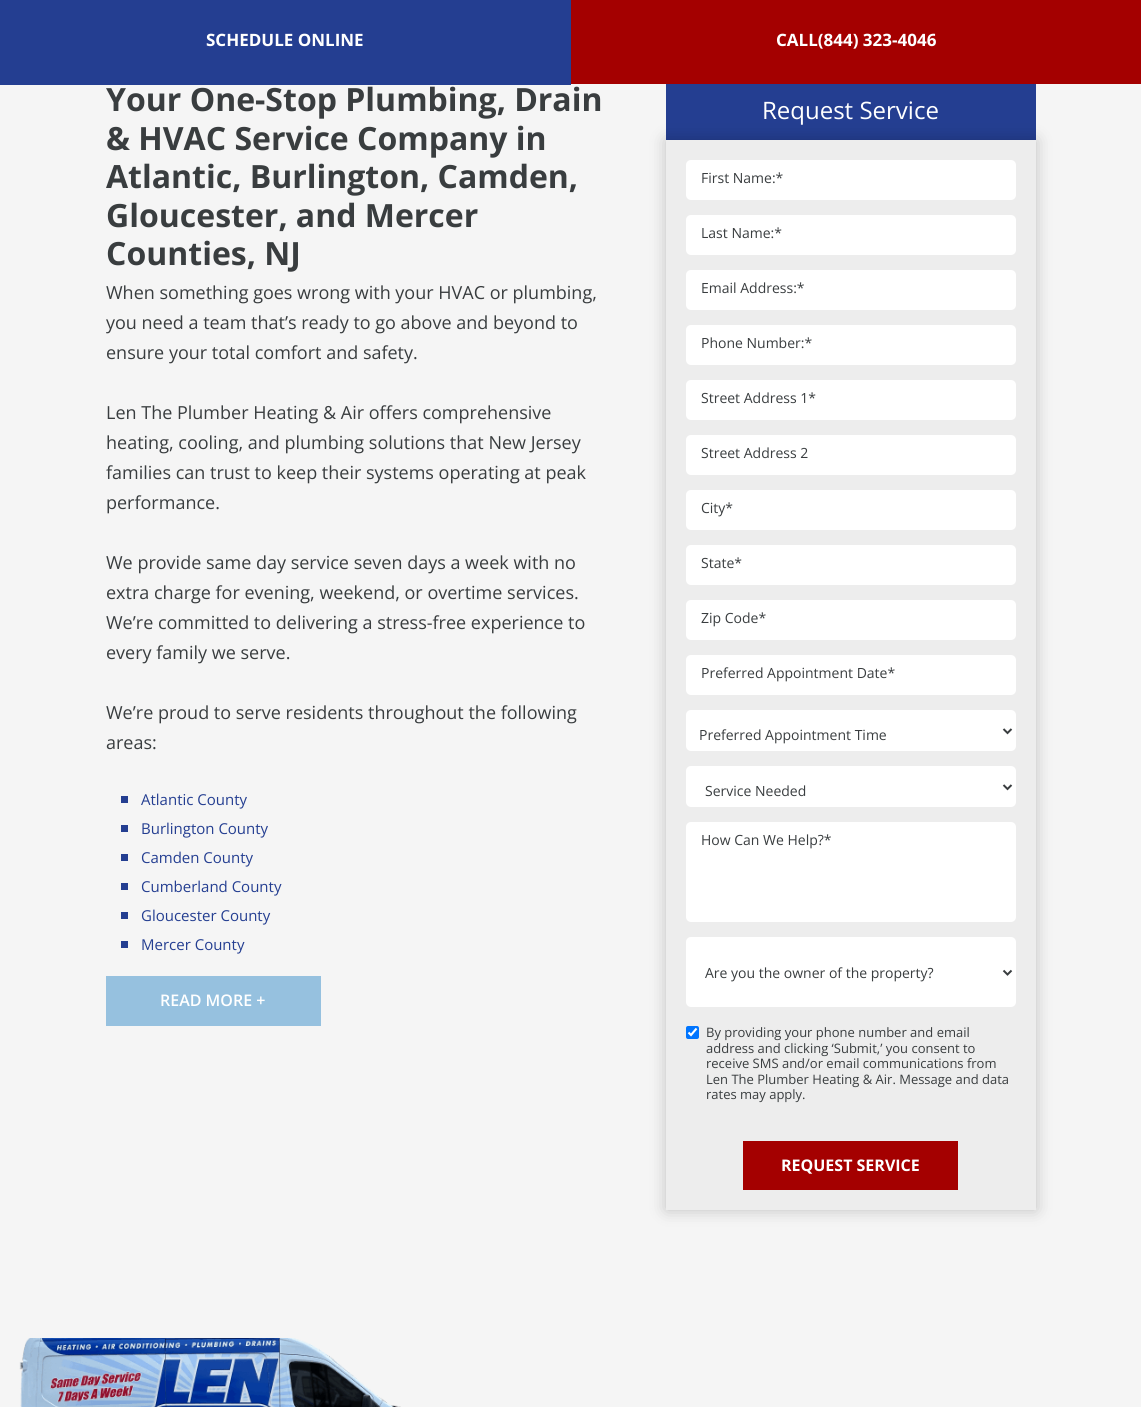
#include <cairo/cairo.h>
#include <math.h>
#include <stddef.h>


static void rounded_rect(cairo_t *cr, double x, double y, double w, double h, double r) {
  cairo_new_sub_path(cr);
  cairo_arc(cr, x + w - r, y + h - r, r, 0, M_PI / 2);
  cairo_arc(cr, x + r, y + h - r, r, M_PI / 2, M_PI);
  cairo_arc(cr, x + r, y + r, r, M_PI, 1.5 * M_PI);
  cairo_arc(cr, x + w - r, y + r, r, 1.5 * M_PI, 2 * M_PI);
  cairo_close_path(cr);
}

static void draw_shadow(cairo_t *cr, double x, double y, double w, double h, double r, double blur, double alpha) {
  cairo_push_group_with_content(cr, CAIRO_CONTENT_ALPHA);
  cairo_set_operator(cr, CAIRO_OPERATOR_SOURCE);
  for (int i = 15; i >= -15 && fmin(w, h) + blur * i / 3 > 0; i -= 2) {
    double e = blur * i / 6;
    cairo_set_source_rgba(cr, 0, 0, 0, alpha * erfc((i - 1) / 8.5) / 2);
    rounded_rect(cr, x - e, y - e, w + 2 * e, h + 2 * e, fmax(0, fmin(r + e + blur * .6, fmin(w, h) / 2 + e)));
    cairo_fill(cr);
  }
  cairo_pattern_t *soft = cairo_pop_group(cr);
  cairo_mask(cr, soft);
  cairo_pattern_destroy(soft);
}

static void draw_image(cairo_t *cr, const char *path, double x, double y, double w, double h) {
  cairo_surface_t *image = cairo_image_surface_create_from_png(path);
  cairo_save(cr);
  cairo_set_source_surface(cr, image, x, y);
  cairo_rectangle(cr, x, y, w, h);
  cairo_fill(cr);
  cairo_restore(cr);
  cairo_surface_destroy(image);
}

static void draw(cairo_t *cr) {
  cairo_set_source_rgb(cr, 245 / 255.0, 245 / 255.0, 245 / 255.0);
  cairo_paint(cr);
  cairo_set_source_rgb(cr, 36 / 255.0, 62 / 255.0, 145 / 255.0);
  cairo_rectangle(cr, 0, 0, 571, 85);
  cairo_fill(cr);
  cairo_set_source_rgb(cr, 164 / 255.0, 0, 0);
  cairo_rectangle(cr, 571, 0, 570, 84);
  cairo_fill(cr);
  cairo_set_source_rgb(cr, 36 / 255.0, 62 / 255.0, 145 / 255.0);
  cairo_rectangle(cr, 121, 796, 7, 7);
  cairo_fill(cr);
  cairo_rectangle(cr, 121, 825, 7, 7);
  cairo_fill(cr);
  cairo_rectangle(cr, 121, 854, 7, 7);
  cairo_fill(cr);
  cairo_rectangle(cr, 121, 883, 7, 7);
  cairo_fill(cr);
  cairo_rectangle(cr, 121, 912, 7, 7);
  cairo_fill(cr);
  cairo_rectangle(cr, 121, 941, 7, 7);
  cairo_fill(cr);
  cairo_set_source_rgb(cr, 150 / 255.0, 193 / 255.0, 223 / 255.0);
  cairo_rectangle(cr, 106, 976, 215, 50);
  cairo_fill(cr);
  cairo_set_source_rgb(cr, 36 / 255.0, 62 / 255.0, 145 / 255.0);
  cairo_rectangle(cr, 666, 84, 370, 56);
  cairo_fill(cr);
  cairo_set_source_rgb(cr, 1 / 255.0, 1 / 255.0, 1 / 255.0);
  draw_shadow(cr, 666, 140, 370, 1070, 0, 8, 0.22);
  cairo_set_source_rgb(cr, 237 / 255.0, 237 / 255.0, 237 / 255.0);
  cairo_rectangle(cr, 666, 140, 370, 1070);
  cairo_fill(cr);
  cairo_set_source_rgb(cr, 1, 1, 1);
  rounded_rect(cr, 686, 160, 330, 40, 5);
  cairo_fill(cr);
  rounded_rect(cr, 686, 215, 330, 40, 5);
  cairo_fill(cr);
  rounded_rect(cr, 686, 270, 330, 40, 5);
  cairo_fill(cr);
  rounded_rect(cr, 686, 325, 330, 40, 5);
  cairo_fill(cr);
  rounded_rect(cr, 686, 380, 330, 40, 5);
  cairo_fill(cr);
  rounded_rect(cr, 686, 435, 330, 40, 5);
  cairo_fill(cr);
  rounded_rect(cr, 686, 490, 330, 40, 5);
  cairo_fill(cr);
  rounded_rect(cr, 686, 545, 330, 40, 5);
  cairo_fill(cr);
  rounded_rect(cr, 686, 600, 330, 40, 5);
  cairo_fill(cr);
  rounded_rect(cr, 686, 655, 330, 40, 5);
  cairo_fill(cr);
  rounded_rect(cr, 686, 710, 330, 41, 5);
  cairo_fill(cr);
  cairo_new_path(cr);
  cairo_move_to(cr, 1003.5, 729);
  cairo_line_to(cr, 1007.5, 733);
  cairo_line_to(cr, 1011.5, 729);
  cairo_set_source_rgb(cr, 57 / 255.0, 61 / 255.0, 63 / 255.0);
  cairo_stroke(cr);
  cairo_set_source_rgb(cr, 1, 1, 1);
  rounded_rect(cr, 686, 766, 330, 41, 5);
  cairo_fill(cr);
  cairo_new_path(cr);
  cairo_move_to(cr, 1003.5, 785);
  cairo_line_to(cr, 1007.5, 789);
  cairo_line_to(cr, 1011.5, 785);
  cairo_set_source_rgb(cr, 57 / 255.0, 61 / 255.0, 63 / 255.0);
  cairo_stroke(cr);
  cairo_set_source_rgb(cr, 1, 1, 1);
  rounded_rect(cr, 686, 822, 330, 100, 5);
  cairo_fill(cr);
  rounded_rect(cr, 686, 937, 330, 70, 5);
  cairo_fill(cr);
  cairo_new_path(cr);
  cairo_move_to(cr, 1003.5, 970.5);
  cairo_line_to(cr, 1007.5, 974.5);
  cairo_line_to(cr, 1011.5, 970.5);
  cairo_set_source_rgb(cr, 57 / 255.0, 61 / 255.0, 63 / 255.0);
  cairo_stroke(cr);
  cairo_set_source_rgb(cr, 0, 117 / 255.0, 1);
  rounded_rect(cr, 686, 1026, 13, 13, 2);
  cairo_fill(cr);
  cairo_new_path(cr);
  cairo_move_to(cr, 688.5, 1032.5);
  cairo_line_to(cr, 691, 1035);
  cairo_line_to(cr, 696.5, 1028.5);
  cairo_set_source_rgb(cr, 1, 1, 1);
  cairo_set_line_width(cr, 2.1);
  cairo_stroke(cr);
  cairo_set_source_rgb(cr, 164 / 255.0, 0, 0);
  cairo_rectangle(cr, 743, 1141, 215, 49);
  cairo_fill(cr);
  draw_image(cr, "images/1.png", 19, 1338, 382, 69);
  cairo_select_font_face(cr, "Open Sans", CAIRO_FONT_SLANT_NORMAL, CAIRO_FONT_WEIGHT_BOLD);
  cairo_set_font_size(cr, 17);
  cairo_set_source_rgb(cr, 1, 1, 1);
  cairo_move_to(cr, 206, 46);
  cairo_show_text(cr, "SCHEDULE ONLINE");
  cairo_move_to(cr, 776, 46);
  cairo_show_text(cr, "CALL(844) 323-4046");
  cairo_set_font_size(cr, 32);
  cairo_set_source_rgb(cr, 57 / 255.0, 61 / 255.0, 63 / 255.0);
  cairo_move_to(cr, 106, 111);
  cairo_show_text(cr, "Your One-Stop Plumbing, Drain");
  cairo_move_to(cr, 106, 150);
  cairo_show_text(cr, "& HVAC Service Company in");
  cairo_move_to(cr, 106, 188);
  cairo_show_text(cr, "Atlantic, Burlington, Camden,");
  cairo_move_to(cr, 106, 227);
  cairo_show_text(cr, "Gloucester, and Mercer");
  cairo_move_to(cr, 106, 265);
  cairo_show_text(cr, "Counties, NJ");
  cairo_select_font_face(cr, "Open Sans", CAIRO_FONT_SLANT_NORMAL, CAIRO_FONT_WEIGHT_NORMAL);
  cairo_set_font_size(cr, 18);
  cairo_move_to(cr, 106, 299);
  cairo_show_text(cr, "When something goes wrong with your HVAC or plumbing,");
  cairo_move_to(cr, 106, 329);
  cairo_show_text(cr, "you need a team that’s ready to go above and beyond to");
  cairo_move_to(cr, 106, 359);
  cairo_show_text(cr, "ensure your total comfort and safety.");
  cairo_move_to(cr, 106, 419);
  cairo_show_text(cr, "Len The Plumber Heating & Air offers comprehensive");
  cairo_move_to(cr, 106, 449);
  cairo_show_text(cr, "heating, cooling, and plumbing solutions that New Jersey");
  cairo_move_to(cr, 106, 479);
  cairo_show_text(cr, "families can trust to keep their systems operating at peak");
  cairo_move_to(cr, 106, 509);
  cairo_show_text(cr, "performance.");
  cairo_move_to(cr, 106, 569);
  cairo_show_text(cr, "We provide same day service seven days a week with no");
  cairo_move_to(cr, 106, 599);
  cairo_show_text(cr, "extra charge for evening, weekend, or overtime services.");
  cairo_move_to(cr, 106, 629);
  cairo_show_text(cr, "We’re committed to delivering a stress-free experience to");
  cairo_move_to(cr, 106, 659);
  cairo_show_text(cr, "every family we serve.");
  cairo_move_to(cr, 106, 719);
  cairo_show_text(cr, "We’re proud to serve residents throughout the following");
  cairo_move_to(cr, 106, 749);
  cairo_show_text(cr, "areas:");
  cairo_set_font_size(cr, 15);
  cairo_set_source_rgb(cr, 36 / 255.0, 62 / 255.0, 145 / 255.0);
  cairo_move_to(cr, 141, 805);
  cairo_show_text(cr, "Atlantic County");
  cairo_move_to(cr, 141, 834);
  cairo_show_text(cr, "Burlington County");
  cairo_move_to(cr, 141, 863);
  cairo_show_text(cr, "Camden County");
  cairo_move_to(cr, 141, 892);
  cairo_show_text(cr, "Cumberland County");
  cairo_move_to(cr, 141, 921);
  cairo_show_text(cr, "Gloucester County");
  cairo_move_to(cr, 141, 950);
  cairo_show_text(cr, "Mercer County");
  cairo_select_font_face(cr, "Open Sans SemiBold", CAIRO_FONT_SLANT_NORMAL, CAIRO_FONT_WEIGHT_NORMAL);
  cairo_set_font_size(cr, 16);
  cairo_set_source_rgb(cr, 1, 1, 1);
  cairo_move_to(cr, 160, 1006);
  cairo_show_text(cr, "READ MORE +");
  cairo_select_font_face(cr, "Open Sans", CAIRO_FONT_SLANT_NORMAL, CAIRO_FONT_WEIGHT_NORMAL);
  cairo_set_font_size(cr, 24);
  cairo_move_to(cr, 762, 119);
  cairo_show_text(cr, "Request Service");
  cairo_set_font_size(cr, 14);
  cairo_set_source_rgb(cr, 57 / 255.0, 61 / 255.0, 63 / 255.0);
  cairo_move_to(cr, 701, 183);
  cairo_show_text(cr, "First Name:*");
  cairo_move_to(cr, 701, 238);
  cairo_show_text(cr, "Last Name:*");
  cairo_move_to(cr, 701, 293);
  cairo_show_text(cr, "Email Address:*");
  cairo_move_to(cr, 701, 348);
  cairo_show_text(cr, "Phone Number:*");
  cairo_move_to(cr, 701, 403);
  cairo_show_text(cr, "Street Address 1*");
  cairo_move_to(cr, 701, 458);
  cairo_show_text(cr, "Street Address 2");
  cairo_move_to(cr, 701, 513);
  cairo_show_text(cr, "City*");
  cairo_move_to(cr, 701, 568);
  cairo_show_text(cr, "State*");
  cairo_move_to(cr, 701, 623);
  cairo_show_text(cr, "Zip Code*");
  cairo_move_to(cr, 701, 678);
  cairo_show_text(cr, "Preferred Appointment Date*");
  cairo_move_to(cr, 699, 740);
  cairo_show_text(cr, "Preferred Appointment Time");
  cairo_move_to(cr, 705, 796);
  cairo_show_text(cr, "Service Needed");
  cairo_move_to(cr, 701, 845);
  cairo_show_text(cr, "How Can We Help?*");
  cairo_move_to(cr, 705, 978);
  cairo_show_text(cr, "Are you the owner of the property?");
  cairo_set_font_size(cr, 13);
  cairo_move_to(cr, 706, 1037);
  cairo_show_text(cr, "By providing your phone number and email");
  cairo_move_to(cr, 706, 1053);
  cairo_show_text(cr, "address and clicking ‘Submit,’ you consent to");
  cairo_move_to(cr, 706, 1068);
  cairo_show_text(cr, "receive SMS and/or email communications from");
  cairo_move_to(cr, 706, 1084);
  cairo_show_text(cr, "Len The Plumber Heating & Air. Message and data");
  cairo_move_to(cr, 706, 1099);
  cairo_show_text(cr, "rates may apply.");
  cairo_select_font_face(cr, "Open Sans", CAIRO_FONT_SLANT_NORMAL, CAIRO_FONT_WEIGHT_BOLD);
  cairo_set_font_size(cr, 16);
  cairo_set_source_rgb(cr, 1, 1, 1);
  cairo_move_to(cr, 781, 1171);
  cairo_show_text(cr, "REQUEST SERVICE");
}

int main(void) {
  cairo_surface_t *surface = cairo_image_surface_create(CAIRO_FORMAT_RGB24, 1141, 1407);
  cairo_t *cr = cairo_create(surface);
  cairo_font_options_t *options = cairo_font_options_create();
  cairo_font_options_set_hint_metrics(options, CAIRO_HINT_METRICS_OFF);
  cairo_font_options_set_hint_style(options, CAIRO_HINT_STYLE_NONE);
  cairo_set_font_options(cr, options);
  cairo_set_miter_limit(cr, 4);
  draw(cr);
  cairo_surface_write_to_png(surface, "out.png");
  cairo_font_options_destroy(options);
  cairo_destroy(cr);
  cairo_surface_destroy(surface);
  return 0;
}
